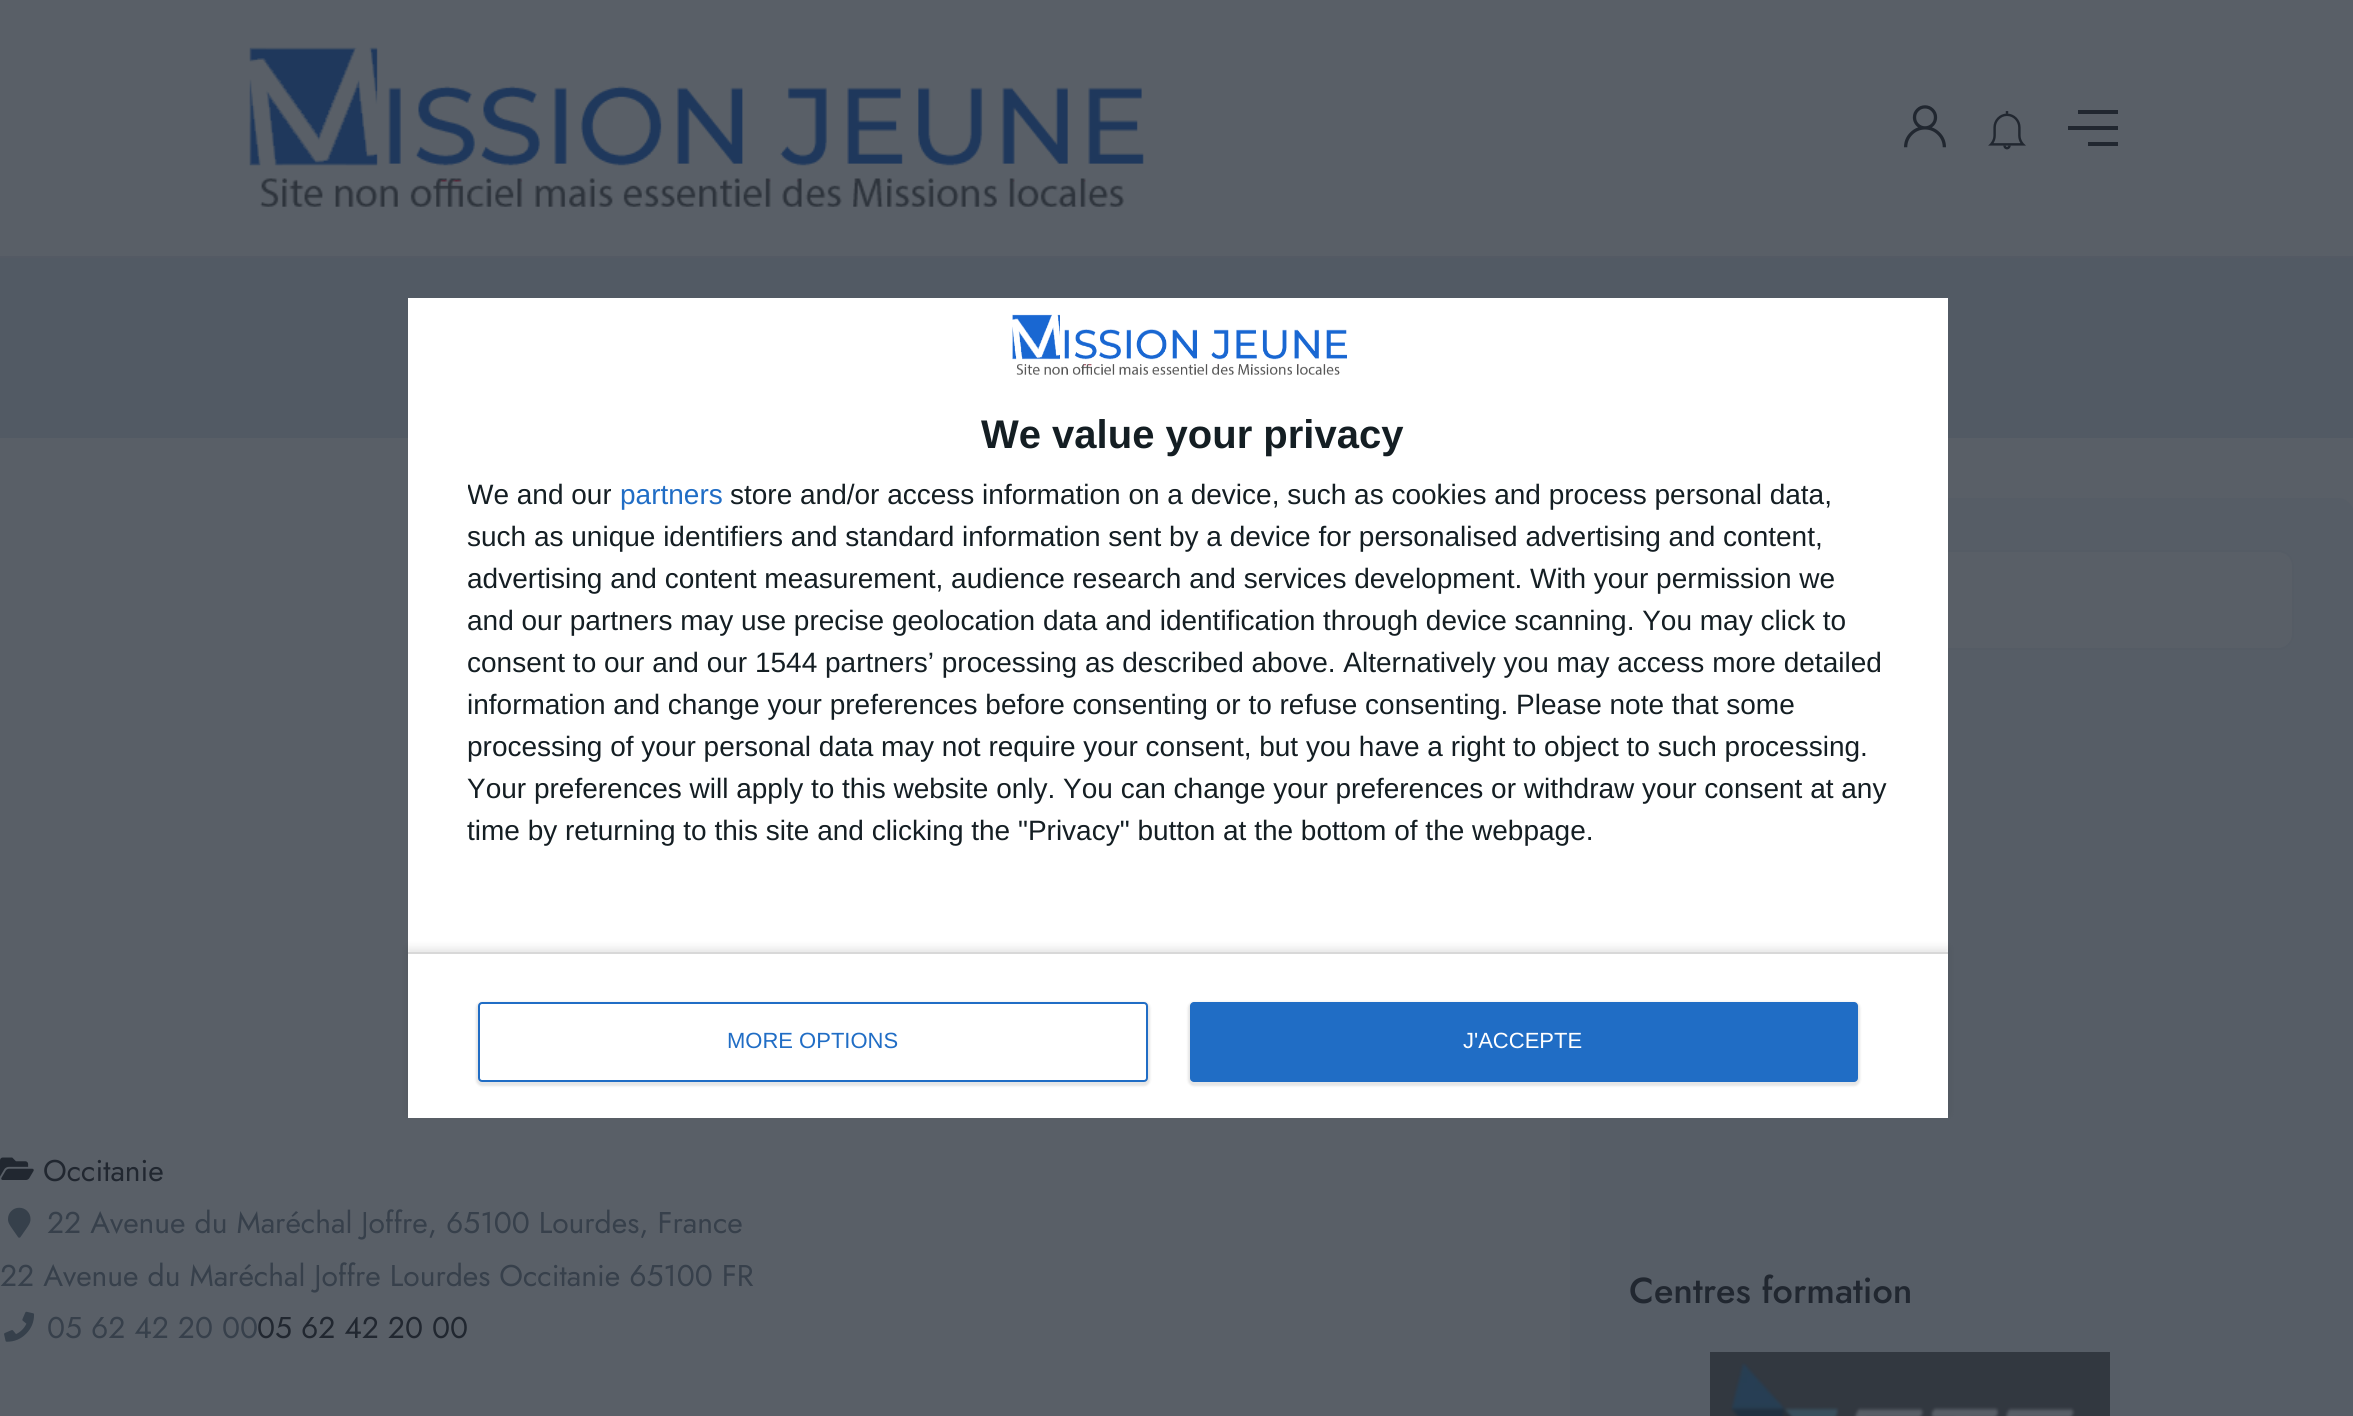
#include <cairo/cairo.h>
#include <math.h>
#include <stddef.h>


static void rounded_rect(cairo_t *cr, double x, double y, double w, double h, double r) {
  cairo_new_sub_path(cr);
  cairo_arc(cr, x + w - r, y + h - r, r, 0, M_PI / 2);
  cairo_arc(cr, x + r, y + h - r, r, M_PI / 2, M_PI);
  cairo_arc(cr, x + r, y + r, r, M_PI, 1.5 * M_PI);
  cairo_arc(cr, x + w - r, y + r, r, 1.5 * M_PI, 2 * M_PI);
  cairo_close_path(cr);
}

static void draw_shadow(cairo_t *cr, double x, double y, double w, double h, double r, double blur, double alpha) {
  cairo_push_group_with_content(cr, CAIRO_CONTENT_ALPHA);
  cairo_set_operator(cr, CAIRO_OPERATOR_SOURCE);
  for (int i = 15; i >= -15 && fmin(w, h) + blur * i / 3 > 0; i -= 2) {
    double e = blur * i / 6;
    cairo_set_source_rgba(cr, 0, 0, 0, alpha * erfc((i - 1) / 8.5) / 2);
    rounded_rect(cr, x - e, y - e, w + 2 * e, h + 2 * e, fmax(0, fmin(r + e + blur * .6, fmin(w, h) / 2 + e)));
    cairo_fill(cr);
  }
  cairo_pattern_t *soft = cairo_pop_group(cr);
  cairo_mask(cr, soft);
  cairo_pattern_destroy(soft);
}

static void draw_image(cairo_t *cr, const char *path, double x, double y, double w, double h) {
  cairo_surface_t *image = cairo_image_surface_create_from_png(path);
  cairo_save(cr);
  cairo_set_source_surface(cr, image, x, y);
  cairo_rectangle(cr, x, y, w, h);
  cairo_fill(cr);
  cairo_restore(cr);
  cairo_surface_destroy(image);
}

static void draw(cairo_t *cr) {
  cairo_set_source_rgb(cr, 89 / 255.0, 95 / 255.0, 103 / 255.0);
  cairo_paint(cr);
  cairo_set_source_rgb(cr, 82 / 255.0, 90 / 255.0, 100 / 255.0);
  cairo_rectangle(cr, 0, 258, 2353, 180);
  cairo_fill(cr);
  cairo_set_source_rgb(cr, 86 / 255.0, 93 / 255.0, 102 / 255.0);
  rounded_rect(cr, 1570, 498, 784, 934, 16);
  cairo_fill(cr);
  cairo_set_source_rgb(cr, 89 / 255.0, 95 / 255.0, 103 / 255.0);
  rounded_rect(cr, 1631, 551, 662, 98, 15);
  cairo_fill_preserve(cr);
  cairo_set_source_rgb(cr, 85 / 255.0, 92 / 255.0, 101 / 255.0);
  cairo_stroke(cr);
  cairo_set_source_rgb(cr, 1, 1, 1);
  cairo_rectangle(cr, 408, 298, 1540, 820);
  cairo_fill(cr);
  draw_image(cr, "images/1.png", 1012, 314, 335, 61);
  cairo_save(cr);
  cairo_set_fill_rule(cr, CAIRO_FILL_RULE_EVEN_ODD);
  cairo_new_path(cr);
  cairo_move_to(cr, 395, 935);
  cairo_line_to(cr, 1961, 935);
  cairo_line_to(cr, 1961, 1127);
  cairo_line_to(cr, 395, 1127);
  cairo_close_path(cr);
  cairo_move_to(cr, 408, 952);
  cairo_line_to(cr, 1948, 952);
  cairo_line_to(cr, 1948, 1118);
  cairo_line_to(cr, 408, 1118);
  cairo_close_path(cr);
  cairo_clip(cr);
  cairo_set_source_rgb(cr, 0, 0, 0);
  draw_shadow(cr, 408, 948, 1540, 166, 0, 4, 0.1);
  cairo_restore(cr);
  cairo_set_source_rgb(cr, 216 / 255.0, 216 / 255.0, 216 / 255.0);
  cairo_rectangle(cr, 408, 952, 1540, 2);
  cairo_fill(cr);
  cairo_set_source_rgb(cr, 0, 0, 0);
  draw_shadow(cr, 476, 1002, 674, 84, 6, 1, 0.1);
  cairo_set_source_rgb(cr, 1, 1, 1);
  rounded_rect(cr, 479, 1003, 668, 78, 3);
  cairo_fill_preserve(cr);
  cairo_set_source_rgb(cr, 32 / 255.0, 109 / 255.0, 197 / 255.0);
  cairo_stroke(cr);
  cairo_set_source_rgb(cr, 0, 0, 0);
  draw_shadow(cr, 1188, 1002, 672, 84, 6, 1, 0.1);
  cairo_set_source_rgb(cr, 32 / 255.0, 109 / 255.0, 197 / 255.0);
  rounded_rect(cr, 1190, 1002, 668, 80, 4);
  cairo_fill(cr);
  cairo_set_source_rgb(cr, 84 / 255.0, 90 / 255.0, 100 / 255.0);
  cairo_rectangle(cr, 0, 256, 2353, 2);
  cairo_fill(cr);
  draw_image(cr, "images/2.png", 249, 47, 895, 160);
  draw_image(cr, "images/3.png", 1904, 105, 42, 43);
  draw_image(cr, "images/4.png", 1988, 111, 38, 39);
  cairo_set_source_rgb(cr, 33 / 255.0, 39 / 255.0, 48 / 255.0);
  cairo_rectangle(cr, 2078, 110, 40, 4);
  cairo_fill(cr);
  cairo_rectangle(cr, 2068, 126, 50, 4);
  cairo_fill(cr);
  cairo_rectangle(cr, 2088, 142, 30, 4);
  cairo_fill(cr);
  draw_image(cr, "images/5.png", 0, 1157, 34, 23);
  draw_image(cr, "images/6.png", 8, 1207, 23, 31);
  draw_image(cr, "images/7.png", 4, 1311, 31, 31);
  draw_image(cr, "images/8.png", 1710, 1352, 400, 64);
  cairo_select_font_face(cr, "Liberation Sans", CAIRO_FONT_SLANT_NORMAL, CAIRO_FONT_WEIGHT_BOLD);
  cairo_set_font_size(cr, 40);
  cairo_set_source_rgb(cr, 20 / 255.0, 30 / 255.0, 35 / 255.0);
  cairo_move_to(cr, 981, 448);
  cairo_show_text(cr, "We value your privacy");
  cairo_save(cr);
  cairo_rectangle(cr, 468, 474, 1420, 378);
  cairo_clip(cr);
  cairo_select_font_face(cr, "Liberation Sans", CAIRO_FONT_SLANT_NORMAL, CAIRO_FONT_WEIGHT_NORMAL);
  cairo_set_font_size(cr, 28);
  cairo_move_to(cr, 467, 504);
  cairo_show_text(cr, "We and our");
  cairo_restore(cr);
  cairo_select_font_face(cr, "Liberation Sans", CAIRO_FONT_SLANT_NORMAL, CAIRO_FONT_WEIGHT_NORMAL);
  cairo_set_font_size(cr, 28);
  cairo_set_source_rgb(cr, 32 / 255.0, 109 / 255.0, 197 / 255.0);
  cairo_move_to(cr, 620, 504);
  cairo_show_text(cr, "partners");
  cairo_set_source_rgb(cr, 20 / 255.0, 30 / 255.0, 35 / 255.0);
  cairo_move_to(cr, 730, 504);
  cairo_show_text(cr, "store and/or access information on a device, such as cookies and process personal data,");
  cairo_move_to(cr, 467, 546);
  cairo_show_text(cr, "such as unique identifiers and standard information sent by a device for personalised advertising and content,");
  cairo_move_to(cr, 467, 588);
  cairo_show_text(cr, "advertising and content measurement, audience research and services development. With your permission we");
  cairo_move_to(cr, 467, 630);
  cairo_show_text(cr, "and our partners may use precise geolocation data and identification through device scanning. You may click to");
  cairo_move_to(cr, 467, 672);
  cairo_show_text(cr, "consent to our and our 1544 partners’ processing as described above. Alternatively you may access more detailed");
  cairo_move_to(cr, 467, 714);
  cairo_show_text(cr, "information and change your preferences before consenting or to refuse consenting. Please note that some");
  cairo_move_to(cr, 467, 756);
  cairo_show_text(cr, "processing of your personal data may not require your consent, but you have a right to object to such processing.");
  cairo_move_to(cr, 467, 798);
  cairo_show_text(cr, "Your preferences will apply to this website only. You can change your preferences or withdraw your consent at any");
  cairo_move_to(cr, 467, 840);
  cairo_show_text(cr, "time by returning to this site and clicking the \"Privacy\" button at the bottom of the webpage.");
  cairo_set_font_size(cr, 22);
  cairo_set_source_rgb(cr, 32 / 255.0, 109 / 255.0, 197 / 255.0);
  cairo_move_to(cr, 727, 1048);
  cairo_show_text(cr, "MORE OPTIONS");
  cairo_set_source_rgb(cr, 1, 1, 1);
  cairo_move_to(cr, 1463, 1048);
  cairo_show_text(cr, "J'ACCEPTE");
  cairo_select_font_face(cr, "Jost", CAIRO_FONT_SLANT_NORMAL, CAIRO_FONT_WEIGHT_NORMAL);
  cairo_set_font_size(cr, 30);
  cairo_set_source_rgb(cr, 33 / 255.0, 39 / 255.0, 48 / 255.0);
  cairo_move_to(cr, 43, 1181);
  cairo_show_text(cr, "Occitanie");
  cairo_set_source_rgb(cr, 55 / 255.0, 64 / 255.0, 75 / 255.0);
  cairo_move_to(cr, 47, 1233);
  cairo_show_text(cr, "22 Avenue du Maréchal Joffre, 65100 Lourdes, France");
  cairo_move_to(cr, 0, 1286);
  cairo_show_text(cr, "22 Avenue du Maréchal Joffre Lourdes Occitanie 65100 FR");
  cairo_move_to(cr, 47, 1338);
  cairo_show_text(cr, "05 62 42 20 00");
  cairo_set_source_rgb(cr, 33 / 255.0, 39 / 255.0, 48 / 255.0);
  cairo_move_to(cr, 257, 1338);
  cairo_show_text(cr, "05 62 42 20 00");
  cairo_select_font_face(cr, "Jost Medium", CAIRO_FONT_SLANT_NORMAL, CAIRO_FONT_WEIGHT_NORMAL);
  cairo_set_font_size(cr, 36);
  cairo_move_to(cr, 1629, 1303);
  cairo_show_text(cr, "Centres formation");
}

int main(void) {
  cairo_surface_t *surface = cairo_image_surface_create(CAIRO_FORMAT_RGB24, 2353, 1416);
  cairo_t *cr = cairo_create(surface);
  cairo_font_options_t *options = cairo_font_options_create();
  cairo_font_options_set_hint_metrics(options, CAIRO_HINT_METRICS_OFF);
  cairo_font_options_set_hint_style(options, CAIRO_HINT_STYLE_NONE);
  cairo_set_font_options(cr, options);
  cairo_set_miter_limit(cr, 4);
  draw(cr);
  cairo_surface_write_to_png(surface, "out.png");
  cairo_font_options_destroy(options);
  cairo_destroy(cr);
  cairo_surface_destroy(surface);
  return 0;
}
